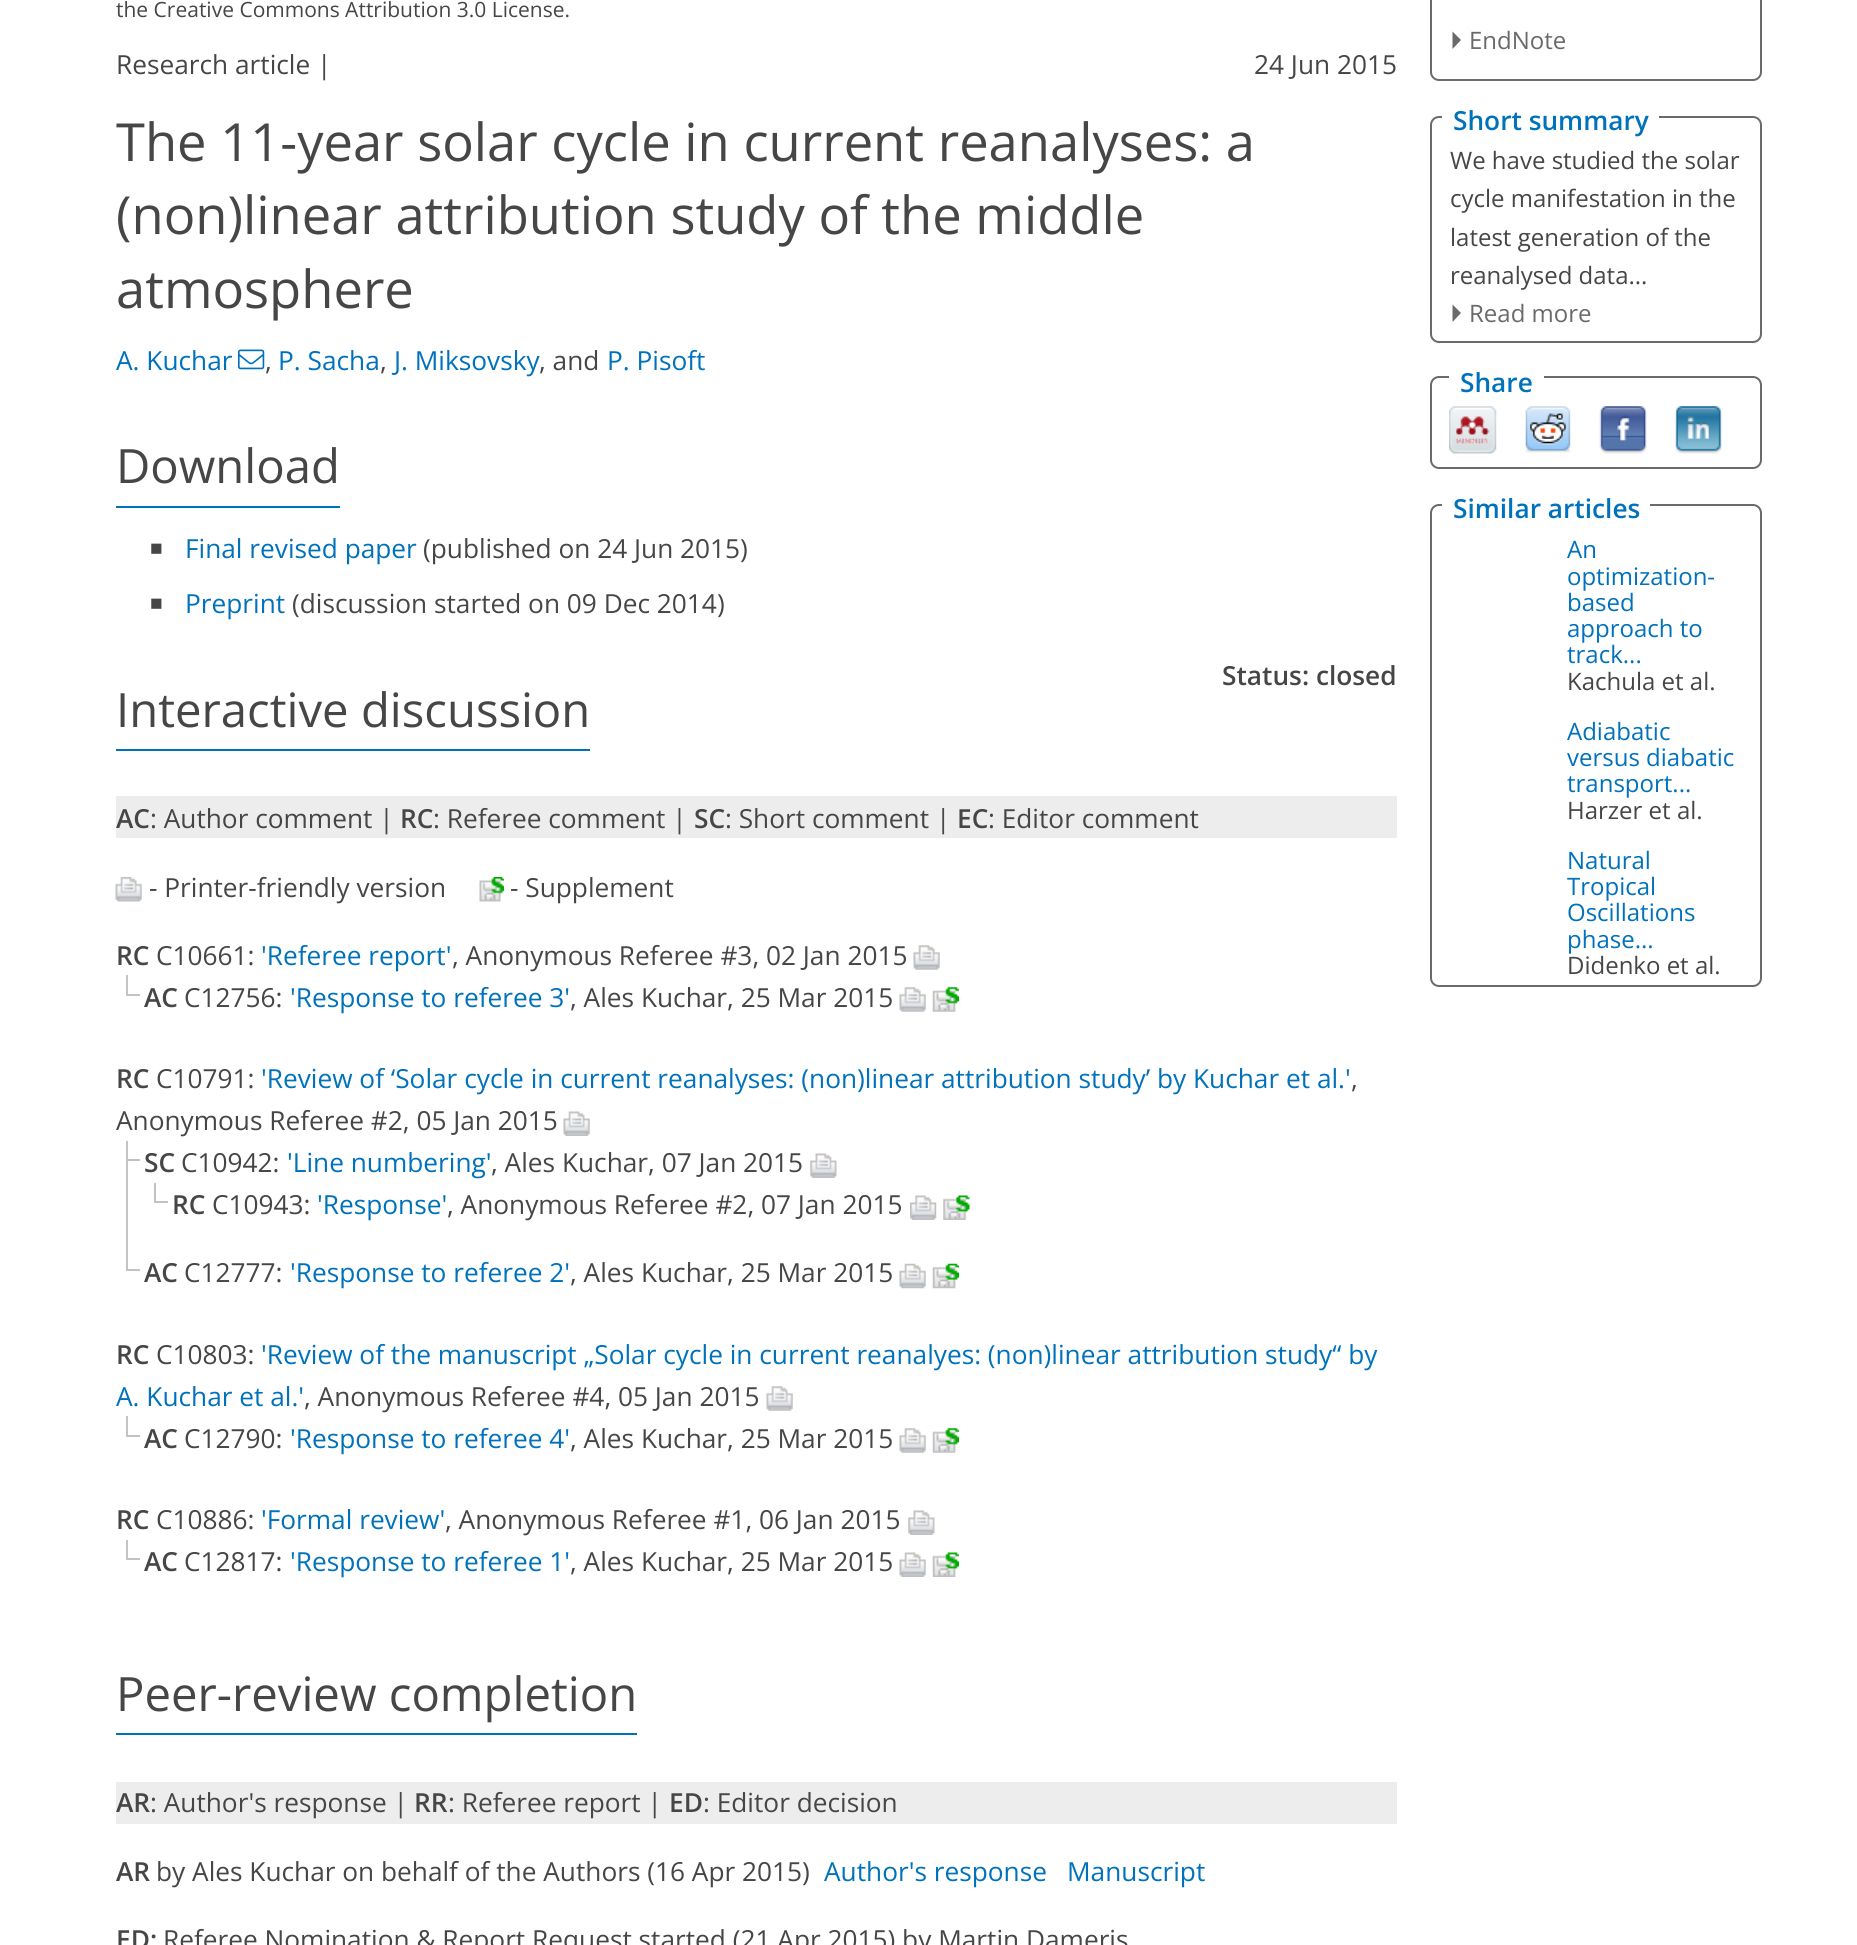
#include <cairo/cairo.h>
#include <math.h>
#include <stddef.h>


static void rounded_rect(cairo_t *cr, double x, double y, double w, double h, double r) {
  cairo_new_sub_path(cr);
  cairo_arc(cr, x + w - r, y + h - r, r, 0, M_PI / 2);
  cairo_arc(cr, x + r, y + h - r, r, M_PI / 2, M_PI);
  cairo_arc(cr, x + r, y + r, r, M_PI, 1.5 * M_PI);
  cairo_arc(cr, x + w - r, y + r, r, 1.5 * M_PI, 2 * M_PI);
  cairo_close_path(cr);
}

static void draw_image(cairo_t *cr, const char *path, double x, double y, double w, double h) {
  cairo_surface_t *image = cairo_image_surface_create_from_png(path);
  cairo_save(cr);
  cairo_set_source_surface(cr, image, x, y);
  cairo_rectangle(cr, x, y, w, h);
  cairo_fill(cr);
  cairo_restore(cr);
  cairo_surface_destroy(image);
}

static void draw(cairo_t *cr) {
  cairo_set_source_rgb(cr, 1, 1, 1);
  cairo_paint(cr);
  draw_image(cr, "images/1.png", 238, 349, 27, 21);
  cairo_set_source_rgb(cr, 0, 114 / 255.0, 188 / 255.0);
  cairo_rectangle(cr, 116, 506, 224, 2);
  cairo_fill(cr);
  cairo_rectangle(cr, 116, 749, 474, 2);
  cairo_fill(cr);
  cairo_set_source_rgb(cr, 237 / 255.0, 237 / 255.0, 237 / 255.0);
  cairo_rectangle(cr, 116, 796, 1281, 42);
  cairo_fill(cr);
  draw_image(cr, "images/2.png", 115, 877, 27, 25);
  draw_image(cr, "images/3.png", 479, 877, 25, 25);
  draw_image(cr, "images/4.png", 913, 945, 27, 25);
  cairo_set_source_rgb(cr, 195 / 255.0, 195 / 255.0, 195 / 255.0);
  cairo_rectangle(cr, 126, 994, 14, 2);
  cairo_fill(cr);
  cairo_rectangle(cr, 126, 975, 2, 21);
  cairo_fill(cr);
  draw_image(cr, "images/4.png", 899, 987, 27, 25);
  draw_image(cr, "images/5.png", 932, 987, 27, 25);
  draw_image(cr, "images/6.png", 563, 1111, 27, 25);
  cairo_rectangle(cr, 126, 1159, 14, 2);
  cairo_fill(cr);
  cairo_rectangle(cr, 126, 1141, 2, 110);
  cairo_fill(cr);
  draw_image(cr, "images/7.png", 810, 1153, 27, 25);
  cairo_rectangle(cr, 154, 1201, 14, 2);
  cairo_fill(cr);
  cairo_rectangle(cr, 154, 1183, 2, 19);
  cairo_fill(cr);
  draw_image(cr, "images/8.png", 910, 1195, 27, 25);
  draw_image(cr, "images/9.png", 943, 1195, 27, 25);
  cairo_rectangle(cr, 126, 1269, 14, 2);
  cairo_fill(cr);
  cairo_rectangle(cr, 126, 1251, 2, 20);
  cairo_fill(cr);
  draw_image(cr, "images/10.png", 899, 1263, 27, 26);
  draw_image(cr, "images/11.png", 932, 1263, 27, 26);
  draw_image(cr, "images/12.png", 766, 1386, 27, 25);
  cairo_rectangle(cr, 126, 1435, 14, 2);
  cairo_fill(cr);
  cairo_rectangle(cr, 126, 1416, 2, 21);
  cairo_fill(cr);
  draw_image(cr, "images/4.png", 899, 1428, 27, 25);
  draw_image(cr, "images/5.png", 932, 1428, 27, 25);
  draw_image(cr, "images/13.png", 908, 1510, 27, 25);
  cairo_rectangle(cr, 126, 1558, 14, 2);
  cairo_fill(cr);
  cairo_rectangle(cr, 126, 1540, 2, 19);
  cairo_fill(cr);
  draw_image(cr, "images/14.png", 899, 1552, 27, 25);
  draw_image(cr, "images/15.png", 932, 1552, 27, 25);
  cairo_set_source_rgb(cr, 0, 114 / 255.0, 188 / 255.0);
  cairo_rectangle(cr, 116, 1733, 521, 2);
  cairo_fill(cr);
  cairo_set_source_rgb(cr, 237 / 255.0, 237 / 255.0, 237 / 255.0);
  cairo_rectangle(cr, 116, 1782, 1281, 42);
  cairo_fill(cr);
  rounded_rect(cr, 1431, -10, 330, 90, 8);
  cairo_set_source_rgb(cr, 106 / 255.0, 106 / 255.0, 106 / 255.0);
  cairo_stroke(cr);
  cairo_new_path(cr);
  cairo_move_to(cr, 1452.5, 49);
  cairo_line_to(cr, 1452.5, 31.5);
  cairo_line_to(cr, 1461, 40);
  cairo_close_path(cr);
  cairo_fill(cr);
  rounded_rect(cr, 1431, 117, 330, 225, 8);
  cairo_stroke(cr);
  cairo_set_source_rgb(cr, 1, 1, 1);
  cairo_rectangle(cr, 1442, 116, 217, 2);
  cairo_fill(cr);
  cairo_set_source_rgb(cr, 106 / 255.0, 106 / 255.0, 106 / 255.0);
  cairo_new_path(cr);
  cairo_move_to(cr, 1452.5, 322);
  cairo_line_to(cr, 1452.5, 304.5);
  cairo_line_to(cr, 1461, 313);
  cairo_close_path(cr);
  cairo_fill(cr);
  rounded_rect(cr, 1431, 377, 330, 91, 8);
  cairo_stroke(cr);
  cairo_set_source_rgb(cr, 1, 1, 1);
  cairo_rectangle(cr, 1449, 376, 95, 2);
  cairo_fill(cr);
  draw_image(cr, "images/16.png", 1449, 406, 48, 48);
  draw_image(cr, "images/17.png", 1525, 406, 46, 47);
  draw_image(cr, "images/18.png", 1599, 406, 48, 48);
  draw_image(cr, "images/19.png", 1675, 406, 47, 48);
  rounded_rect(cr, 1431, 505, 330, 481, 8);
  cairo_set_source_rgb(cr, 106 / 255.0, 106 / 255.0, 106 / 255.0);
  cairo_stroke(cr);
  cairo_set_source_rgb(cr, 1, 1, 1);
  cairo_rectangle(cr, 1442, 504, 208, 2);
  cairo_fill(cr);
  cairo_select_font_face(cr, "Open Sans", CAIRO_FONT_SLANT_NORMAL, CAIRO_FONT_WEIGHT_NORMAL);
  cairo_set_font_size(cr, 21);
  cairo_set_source_rgb(cr, 70 / 255.0, 70 / 255.0, 70 / 255.0);
  cairo_move_to(cr, 116, 17);
  cairo_show_text(cr, "the Creative Commons Attribution 3.0 License.");
  cairo_set_font_size(cr, 26.25);
  cairo_move_to(cr, 116, 74);
  cairo_show_text(cr, "Research article |");
  cairo_move_to(cr, 1254, 74);
  cairo_show_text(cr, "24 Jun 2015");
  cairo_set_font_size(cr, 52.5);
  cairo_move_to(cr, 116, 161);
  cairo_show_text(cr, "The 11-year solar cycle in current reanalyses: a");
  cairo_move_to(cr, 116, 234);
  cairo_show_text(cr, "(non)linear attribution study of the middle");
  cairo_move_to(cr, 116, 308);
  cairo_show_text(cr, "atmosphere");
  cairo_set_font_size(cr, 26.25);
  cairo_set_source_rgb(cr, 0, 114 / 255.0, 188 / 255.0);
  cairo_move_to(cr, 116, 370);
  cairo_show_text(cr, "A. Kuchar");
  cairo_set_source_rgb(cr, 70 / 255.0, 70 / 255.0, 70 / 255.0);
  cairo_move_to(cr, 265, 370);
  cairo_show_text(cr, ",");
  cairo_set_source_rgb(cr, 0, 114 / 255.0, 188 / 255.0);
  cairo_move_to(cr, 278, 370);
  cairo_show_text(cr, "P. Sacha");
  cairo_set_source_rgb(cr, 70 / 255.0, 70 / 255.0, 70 / 255.0);
  cairo_move_to(cr, 380, 370);
  cairo_show_text(cr, ",");
  cairo_set_source_rgb(cr, 0, 114 / 255.0, 188 / 255.0);
  cairo_move_to(cr, 394, 370);
  cairo_show_text(cr, "J. Miksovsky");
  cairo_set_source_rgb(cr, 70 / 255.0, 70 / 255.0, 70 / 255.0);
  cairo_move_to(cr, 539, 370);
  cairo_show_text(cr, ", and");
  cairo_set_source_rgb(cr, 0, 114 / 255.0, 188 / 255.0);
  cairo_move_to(cr, 607, 370);
  cairo_show_text(cr, "P. Pisoft");
  cairo_set_font_size(cr, 47.25);
  cairo_set_source_rgb(cr, 70 / 255.0, 70 / 255.0, 70 / 255.0);
  cairo_move_to(cr, 116, 483);
  cairo_show_text(cr, "Download");
  cairo_select_font_face(cr, "Liberation Sans", CAIRO_FONT_SLANT_NORMAL, CAIRO_FONT_WEIGHT_NORMAL);
  cairo_set_font_size(cr, 21);
  cairo_move_to(cr, 150, 555);
  cairo_show_text(cr, "■");
  cairo_select_font_face(cr, "Open Sans", CAIRO_FONT_SLANT_NORMAL, CAIRO_FONT_WEIGHT_NORMAL);
  cairo_set_font_size(cr, 26.25);
  cairo_set_source_rgb(cr, 0, 114 / 255.0, 188 / 255.0);
  cairo_move_to(cr, 185, 558);
  cairo_show_text(cr, "Final revised paper");
  cairo_set_source_rgb(cr, 70 / 255.0, 70 / 255.0, 70 / 255.0);
  cairo_move_to(cr, 423, 558);
  cairo_show_text(cr, "(published on 24 Jun 2015)");
  cairo_select_font_face(cr, "Liberation Sans", CAIRO_FONT_SLANT_NORMAL, CAIRO_FONT_WEIGHT_NORMAL);
  cairo_set_font_size(cr, 21);
  cairo_move_to(cr, 150, 610);
  cairo_show_text(cr, "■");
  cairo_select_font_face(cr, "Open Sans", CAIRO_FONT_SLANT_NORMAL, CAIRO_FONT_WEIGHT_NORMAL);
  cairo_set_font_size(cr, 26.25);
  cairo_set_source_rgb(cr, 0, 114 / 255.0, 188 / 255.0);
  cairo_move_to(cr, 185, 613);
  cairo_show_text(cr, "Preprint");
  cairo_set_source_rgb(cr, 70 / 255.0, 70 / 255.0, 70 / 255.0);
  cairo_move_to(cr, 292, 613);
  cairo_show_text(cr, "(discussion started on 09 Dec 2014)");
  cairo_select_font_face(cr, "Open Sans SemiBold", CAIRO_FONT_SLANT_NORMAL, CAIRO_FONT_WEIGHT_NORMAL);
  cairo_move_to(cr, 1222, 685);
  cairo_show_text(cr, "Status: closed");
  cairo_select_font_face(cr, "Open Sans", CAIRO_FONT_SLANT_NORMAL, CAIRO_FONT_WEIGHT_NORMAL);
  cairo_set_font_size(cr, 47.25);
  cairo_move_to(cr, 116, 727);
  cairo_show_text(cr, "Interactive discussion");
  cairo_select_font_face(cr, "Open Sans SemiBold", CAIRO_FONT_SLANT_NORMAL, CAIRO_FONT_WEIGHT_NORMAL);
  cairo_set_font_size(cr, 26.25);
  cairo_move_to(cr, 116, 828);
  cairo_show_text(cr, "AC");
  cairo_select_font_face(cr, "Open Sans", CAIRO_FONT_SLANT_NORMAL, CAIRO_FONT_WEIGHT_NORMAL);
  cairo_move_to(cr, 150, 828);
  cairo_show_text(cr, ": Author comment |");
  cairo_select_font_face(cr, "Open Sans SemiBold", CAIRO_FONT_SLANT_NORMAL, CAIRO_FONT_WEIGHT_NORMAL);
  cairo_move_to(cr, 400, 828);
  cairo_show_text(cr, "RC");
  cairo_select_font_face(cr, "Open Sans", CAIRO_FONT_SLANT_NORMAL, CAIRO_FONT_WEIGHT_NORMAL);
  cairo_move_to(cr, 433, 828);
  cairo_show_text(cr, ": Referee comment |");
  cairo_select_font_face(cr, "Open Sans SemiBold", CAIRO_FONT_SLANT_NORMAL, CAIRO_FONT_WEIGHT_NORMAL);
  cairo_move_to(cr, 694, 828);
  cairo_show_text(cr, "SC");
  cairo_select_font_face(cr, "Open Sans", CAIRO_FONT_SLANT_NORMAL, CAIRO_FONT_WEIGHT_NORMAL);
  cairo_move_to(cr, 725, 828);
  cairo_show_text(cr, ": Short comment |");
  cairo_select_font_face(cr, "Open Sans SemiBold", CAIRO_FONT_SLANT_NORMAL, CAIRO_FONT_WEIGHT_NORMAL);
  cairo_move_to(cr, 957, 828);
  cairo_show_text(cr, "EC");
  cairo_select_font_face(cr, "Open Sans", CAIRO_FONT_SLANT_NORMAL, CAIRO_FONT_WEIGHT_NORMAL);
  cairo_move_to(cr, 988, 828);
  cairo_show_text(cr, ": Editor comment");
  cairo_move_to(cr, 149, 897);
  cairo_show_text(cr, "- Printer-friendly version");
  cairo_move_to(cr, 510, 897);
  cairo_show_text(cr, "- Supplement");
  cairo_select_font_face(cr, "Open Sans SemiBold", CAIRO_FONT_SLANT_NORMAL, CAIRO_FONT_WEIGHT_NORMAL);
  cairo_move_to(cr, 116, 965);
  cairo_show_text(cr, "RC");
  cairo_select_font_face(cr, "Open Sans", CAIRO_FONT_SLANT_NORMAL, CAIRO_FONT_WEIGHT_NORMAL);
  cairo_move_to(cr, 156, 965);
  cairo_show_text(cr, "C10661:");
  cairo_set_source_rgb(cr, 0, 114 / 255.0, 188 / 255.0);
  cairo_move_to(cr, 261, 965);
  cairo_show_text(cr, "'Referee report'");
  cairo_set_source_rgb(cr, 70 / 255.0, 70 / 255.0, 70 / 255.0);
  cairo_move_to(cr, 452, 965);
  cairo_show_text(cr, ", Anonymous Referee #3, 02 Jan 2015");
  cairo_select_font_face(cr, "Open Sans SemiBold", CAIRO_FONT_SLANT_NORMAL, CAIRO_FONT_WEIGHT_NORMAL);
  cairo_move_to(cr, 144, 1007);
  cairo_show_text(cr, "AC");
  cairo_select_font_face(cr, "Open Sans", CAIRO_FONT_SLANT_NORMAL, CAIRO_FONT_WEIGHT_NORMAL);
  cairo_move_to(cr, 184, 1007);
  cairo_show_text(cr, "C12756:");
  cairo_set_source_rgb(cr, 0, 114 / 255.0, 188 / 255.0);
  cairo_move_to(cr, 290, 1007);
  cairo_show_text(cr, "'Response to referee 3'");
  cairo_set_source_rgb(cr, 70 / 255.0, 70 / 255.0, 70 / 255.0);
  cairo_move_to(cr, 570, 1007);
  cairo_show_text(cr, ", Ales Kuchar, 25 Mar 2015");
  cairo_select_font_face(cr, "Open Sans SemiBold", CAIRO_FONT_SLANT_NORMAL, CAIRO_FONT_WEIGHT_NORMAL);
  cairo_move_to(cr, 116, 1088);
  cairo_show_text(cr, "RC");
  cairo_select_font_face(cr, "Open Sans", CAIRO_FONT_SLANT_NORMAL, CAIRO_FONT_WEIGHT_NORMAL);
  cairo_move_to(cr, 156, 1088);
  cairo_show_text(cr, "C10791:");
  cairo_set_source_rgb(cr, 0, 114 / 255.0, 188 / 255.0);
  cairo_move_to(cr, 261, 1088);
  cairo_show_text(cr, "'Review of ‘Solar cycle in current reanalyses: (non)linear attribution study’ by Kuchar et al.'");
  cairo_set_source_rgb(cr, 70 / 255.0, 70 / 255.0, 70 / 255.0);
  cairo_move_to(cr, 1351, 1088);
  cairo_show_text(cr, ",");
  cairo_move_to(cr, 116, 1130);
  cairo_show_text(cr, "Anonymous Referee #2, 05 Jan 2015");
  cairo_select_font_face(cr, "Open Sans SemiBold", CAIRO_FONT_SLANT_NORMAL, CAIRO_FONT_WEIGHT_NORMAL);
  cairo_move_to(cr, 144, 1172);
  cairo_show_text(cr, "SC");
  cairo_select_font_face(cr, "Open Sans", CAIRO_FONT_SLANT_NORMAL, CAIRO_FONT_WEIGHT_NORMAL);
  cairo_move_to(cr, 181, 1172);
  cairo_show_text(cr, "C10942:");
  cairo_set_source_rgb(cr, 0, 114 / 255.0, 188 / 255.0);
  cairo_move_to(cr, 287, 1172);
  cairo_show_text(cr, "'Line numbering'");
  cairo_set_source_rgb(cr, 70 / 255.0, 70 / 255.0, 70 / 255.0);
  cairo_move_to(cr, 491, 1172);
  cairo_show_text(cr, ", Ales Kuchar, 07 Jan 2015");
  cairo_select_font_face(cr, "Open Sans SemiBold", CAIRO_FONT_SLANT_NORMAL, CAIRO_FONT_WEIGHT_NORMAL);
  cairo_move_to(cr, 172, 1214);
  cairo_show_text(cr, "RC");
  cairo_select_font_face(cr, "Open Sans", CAIRO_FONT_SLANT_NORMAL, CAIRO_FONT_WEIGHT_NORMAL);
  cairo_move_to(cr, 212, 1214);
  cairo_show_text(cr, "C10943:");
  cairo_set_source_rgb(cr, 0, 114 / 255.0, 188 / 255.0);
  cairo_move_to(cr, 317, 1214);
  cairo_show_text(cr, "'Response'");
  cairo_set_source_rgb(cr, 70 / 255.0, 70 / 255.0, 70 / 255.0);
  cairo_move_to(cr, 447, 1214);
  cairo_show_text(cr, ", Anonymous Referee #2, 07 Jan 2015");
  cairo_select_font_face(cr, "Open Sans SemiBold", CAIRO_FONT_SLANT_NORMAL, CAIRO_FONT_WEIGHT_NORMAL);
  cairo_move_to(cr, 144, 1282);
  cairo_show_text(cr, "AC");
  cairo_select_font_face(cr, "Open Sans", CAIRO_FONT_SLANT_NORMAL, CAIRO_FONT_WEIGHT_NORMAL);
  cairo_move_to(cr, 184, 1282);
  cairo_show_text(cr, "C12777:");
  cairo_set_source_rgb(cr, 0, 114 / 255.0, 188 / 255.0);
  cairo_move_to(cr, 290, 1282);
  cairo_show_text(cr, "'Response to referee 2'");
  cairo_set_source_rgb(cr, 70 / 255.0, 70 / 255.0, 70 / 255.0);
  cairo_move_to(cr, 570, 1282);
  cairo_show_text(cr, ", Ales Kuchar, 25 Mar 2015");
  cairo_select_font_face(cr, "Open Sans SemiBold", CAIRO_FONT_SLANT_NORMAL, CAIRO_FONT_WEIGHT_NORMAL);
  cairo_move_to(cr, 116, 1364);
  cairo_show_text(cr, "RC");
  cairo_select_font_face(cr, "Open Sans", CAIRO_FONT_SLANT_NORMAL, CAIRO_FONT_WEIGHT_NORMAL);
  cairo_move_to(cr, 156, 1364);
  cairo_show_text(cr, "C10803:");
  cairo_set_source_rgb(cr, 0, 114 / 255.0, 188 / 255.0);
  cairo_move_to(cr, 261, 1364);
  cairo_show_text(cr, "'Review of the manuscript „Solar cycle in current reanalyes: (non)linear attribution study“ by");
  cairo_move_to(cr, 116, 1406);
  cairo_show_text(cr, "A. Kuchar et al.'");
  cairo_set_source_rgb(cr, 70 / 255.0, 70 / 255.0, 70 / 255.0);
  cairo_move_to(cr, 304, 1406);
  cairo_show_text(cr, ", Anonymous Referee #4, 05 Jan 2015");
  cairo_select_font_face(cr, "Open Sans SemiBold", CAIRO_FONT_SLANT_NORMAL, CAIRO_FONT_WEIGHT_NORMAL);
  cairo_move_to(cr, 144, 1448);
  cairo_show_text(cr, "AC");
  cairo_select_font_face(cr, "Open Sans", CAIRO_FONT_SLANT_NORMAL, CAIRO_FONT_WEIGHT_NORMAL);
  cairo_move_to(cr, 184, 1448);
  cairo_show_text(cr, "C12790:");
  cairo_set_source_rgb(cr, 0, 114 / 255.0, 188 / 255.0);
  cairo_move_to(cr, 290, 1448);
  cairo_show_text(cr, "'Response to referee 4'");
  cairo_set_source_rgb(cr, 70 / 255.0, 70 / 255.0, 70 / 255.0);
  cairo_move_to(cr, 570, 1448);
  cairo_show_text(cr, ", Ales Kuchar, 25 Mar 2015");
  cairo_select_font_face(cr, "Open Sans SemiBold", CAIRO_FONT_SLANT_NORMAL, CAIRO_FONT_WEIGHT_NORMAL);
  cairo_move_to(cr, 116, 1529);
  cairo_show_text(cr, "RC");
  cairo_select_font_face(cr, "Open Sans", CAIRO_FONT_SLANT_NORMAL, CAIRO_FONT_WEIGHT_NORMAL);
  cairo_move_to(cr, 156, 1529);
  cairo_show_text(cr, "C10886:");
  cairo_set_source_rgb(cr, 0, 114 / 255.0, 188 / 255.0);
  cairo_move_to(cr, 261, 1529);
  cairo_show_text(cr, "'Formal review'");
  cairo_set_source_rgb(cr, 70 / 255.0, 70 / 255.0, 70 / 255.0);
  cairo_move_to(cr, 445, 1529);
  cairo_show_text(cr, ", Anonymous Referee #1, 06 Jan 2015");
  cairo_select_font_face(cr, "Open Sans SemiBold", CAIRO_FONT_SLANT_NORMAL, CAIRO_FONT_WEIGHT_NORMAL);
  cairo_move_to(cr, 144, 1571);
  cairo_show_text(cr, "AC");
  cairo_select_font_face(cr, "Open Sans", CAIRO_FONT_SLANT_NORMAL, CAIRO_FONT_WEIGHT_NORMAL);
  cairo_move_to(cr, 184, 1571);
  cairo_show_text(cr, "C12817:");
  cairo_set_source_rgb(cr, 0, 114 / 255.0, 188 / 255.0);
  cairo_move_to(cr, 290, 1571);
  cairo_show_text(cr, "'Response to referee 1'");
  cairo_set_source_rgb(cr, 70 / 255.0, 70 / 255.0, 70 / 255.0);
  cairo_move_to(cr, 570, 1571);
  cairo_show_text(cr, ", Ales Kuchar, 25 Mar 2015");
  cairo_set_font_size(cr, 47.25);
  cairo_move_to(cr, 116, 1711);
  cairo_show_text(cr, "Peer-review completion");
  cairo_select_font_face(cr, "Open Sans SemiBold", CAIRO_FONT_SLANT_NORMAL, CAIRO_FONT_WEIGHT_NORMAL);
  cairo_set_font_size(cr, 26.25);
  cairo_move_to(cr, 116, 1812);
  cairo_show_text(cr, "AR");
  cairo_select_font_face(cr, "Open Sans", CAIRO_FONT_SLANT_NORMAL, CAIRO_FONT_WEIGHT_NORMAL);
  cairo_move_to(cr, 150, 1812);
  cairo_show_text(cr, ": Author's response |");
  cairo_select_font_face(cr, "Open Sans SemiBold", CAIRO_FONT_SLANT_NORMAL, CAIRO_FONT_WEIGHT_NORMAL);
  cairo_move_to(cr, 414, 1812);
  cairo_show_text(cr, "RR");
  cairo_select_font_face(cr, "Open Sans", CAIRO_FONT_SLANT_NORMAL, CAIRO_FONT_WEIGHT_NORMAL);
  cairo_move_to(cr, 448, 1812);
  cairo_show_text(cr, ": Referee report |");
  cairo_select_font_face(cr, "Open Sans SemiBold", CAIRO_FONT_SLANT_NORMAL, CAIRO_FONT_WEIGHT_NORMAL);
  cairo_move_to(cr, 669, 1812);
  cairo_show_text(cr, "ED");
  cairo_select_font_face(cr, "Open Sans", CAIRO_FONT_SLANT_NORMAL, CAIRO_FONT_WEIGHT_NORMAL);
  cairo_move_to(cr, 703, 1812);
  cairo_show_text(cr, ": Editor decision");
  cairo_select_font_face(cr, "Open Sans SemiBold", CAIRO_FONT_SLANT_NORMAL, CAIRO_FONT_WEIGHT_NORMAL);
  cairo_move_to(cr, 116, 1881);
  cairo_show_text(cr, "AR");
  cairo_select_font_face(cr, "Open Sans", CAIRO_FONT_SLANT_NORMAL, CAIRO_FONT_WEIGHT_NORMAL);
  cairo_move_to(cr, 156, 1881);
  cairo_show_text(cr, "by Ales Kuchar on behalf of the Authors (16 Apr 2015)");
  cairo_set_source_rgb(cr, 0, 114 / 255.0, 188 / 255.0);
  cairo_move_to(cr, 824, 1881);
  cairo_show_text(cr, "Author's response");
  cairo_move_to(cr, 1067, 1881);
  cairo_show_text(cr, "Manuscript");
  cairo_select_font_face(cr, "Open Sans SemiBold", CAIRO_FONT_SLANT_NORMAL, CAIRO_FONT_WEIGHT_NORMAL);
  cairo_set_source_rgb(cr, 70 / 255.0, 70 / 255.0, 70 / 255.0);
  cairo_move_to(cr, 116, 1949);
  cairo_show_text(cr, "ED:");
  cairo_select_font_face(cr, "Open Sans", CAIRO_FONT_SLANT_NORMAL, CAIRO_FONT_WEIGHT_NORMAL);
  cairo_move_to(cr, 163, 1949);
  cairo_show_text(cr, "Referee Nomination & Report Request started (21 Apr 2015) by Martin Dameris");
  cairo_set_font_size(cr, 24);
  cairo_set_source_rgb(cr, 106 / 255.0, 106 / 255.0, 106 / 255.0);
  cairo_move_to(cr, 1469, 49);
  cairo_show_text(cr, "EndNote");
  cairo_select_font_face(cr, "Open Sans SemiBold", CAIRO_FONT_SLANT_NORMAL, CAIRO_FONT_WEIGHT_NORMAL);
  cairo_set_font_size(cr, 26.25);
  cairo_set_source_rgb(cr, 0, 114 / 255.0, 188 / 255.0);
  cairo_move_to(cr, 1453, 130);
  cairo_show_text(cr, "Short summary");
  cairo_select_font_face(cr, "Open Sans", CAIRO_FONT_SLANT_NORMAL, CAIRO_FONT_WEIGHT_NORMAL);
  cairo_set_font_size(cr, 24);
  cairo_set_source_rgb(cr, 70 / 255.0, 70 / 255.0, 70 / 255.0);
  cairo_move_to(cr, 1450, 169);
  cairo_show_text(cr, "We have studied the solar");
  cairo_move_to(cr, 1450, 207);
  cairo_show_text(cr, "cycle manifestation in the");
  cairo_move_to(cr, 1450, 246);
  cairo_show_text(cr, "latest generation of the");
  cairo_move_to(cr, 1450, 284);
  cairo_show_text(cr, "reanalysed data...");
  cairo_set_source_rgb(cr, 106 / 255.0, 106 / 255.0, 106 / 255.0);
  cairo_move_to(cr, 1469, 322);
  cairo_show_text(cr, "Read more");
  cairo_select_font_face(cr, "Open Sans SemiBold", CAIRO_FONT_SLANT_NORMAL, CAIRO_FONT_WEIGHT_NORMAL);
  cairo_set_font_size(cr, 26.25);
  cairo_set_source_rgb(cr, 0, 114 / 255.0, 188 / 255.0);
  cairo_move_to(cr, 1460, 392);
  cairo_show_text(cr, "Share");
  cairo_move_to(cr, 1453, 518);
  cairo_show_text(cr, "Similar articles");
  cairo_select_font_face(cr, "Open Sans", CAIRO_FONT_SLANT_NORMAL, CAIRO_FONT_WEIGHT_NORMAL);
  cairo_set_font_size(cr, 24);
  cairo_move_to(cr, 1567, 558);
  cairo_show_text(cr, "An");
  cairo_move_to(cr, 1567, 585);
  cairo_show_text(cr, "optimization-");
  cairo_move_to(cr, 1567, 611);
  cairo_show_text(cr, "based");
  cairo_move_to(cr, 1567, 637);
  cairo_show_text(cr, "approach to");
  cairo_move_to(cr, 1567, 663);
  cairo_show_text(cr, "track...");
  cairo_set_source_rgb(cr, 70 / 255.0, 70 / 255.0, 70 / 255.0);
  cairo_move_to(cr, 1567, 690);
  cairo_show_text(cr, "Kachula et al.");
  cairo_set_source_rgb(cr, 0, 114 / 255.0, 188 / 255.0);
  cairo_move_to(cr, 1567, 740);
  cairo_show_text(cr, "Adiabatic");
  cairo_move_to(cr, 1567, 766);
  cairo_show_text(cr, "versus diabatic");
  cairo_move_to(cr, 1567, 792);
  cairo_show_text(cr, "transport...");
  cairo_set_source_rgb(cr, 70 / 255.0, 70 / 255.0, 70 / 255.0);
  cairo_move_to(cr, 1567, 819);
  cairo_show_text(cr, "Harzer et al.");
  cairo_set_source_rgb(cr, 0, 114 / 255.0, 188 / 255.0);
  cairo_move_to(cr, 1567, 869);
  cairo_show_text(cr, "Natural");
  cairo_move_to(cr, 1567, 895);
  cairo_show_text(cr, "Tropical");
  cairo_move_to(cr, 1567, 921);
  cairo_show_text(cr, "Oscillations");
  cairo_move_to(cr, 1567, 948);
  cairo_show_text(cr, "phase...");
  cairo_set_source_rgb(cr, 70 / 255.0, 70 / 255.0, 70 / 255.0);
  cairo_move_to(cr, 1567, 974);
  cairo_show_text(cr, "Didenko et al.");
}

int main(void) {
  cairo_surface_t *surface = cairo_image_surface_create(CAIRO_FORMAT_RGB24, 1857, 1945);
  cairo_t *cr = cairo_create(surface);
  cairo_font_options_t *options = cairo_font_options_create();
  cairo_font_options_set_hint_metrics(options, CAIRO_HINT_METRICS_OFF);
  cairo_font_options_set_hint_style(options, CAIRO_HINT_STYLE_NONE);
  cairo_set_font_options(cr, options);
  cairo_set_miter_limit(cr, 4);
  draw(cr);
  cairo_surface_write_to_png(surface, "out.png");
  cairo_font_options_destroy(options);
  cairo_destroy(cr);
  cairo_surface_destroy(surface);
  return 0;
}
